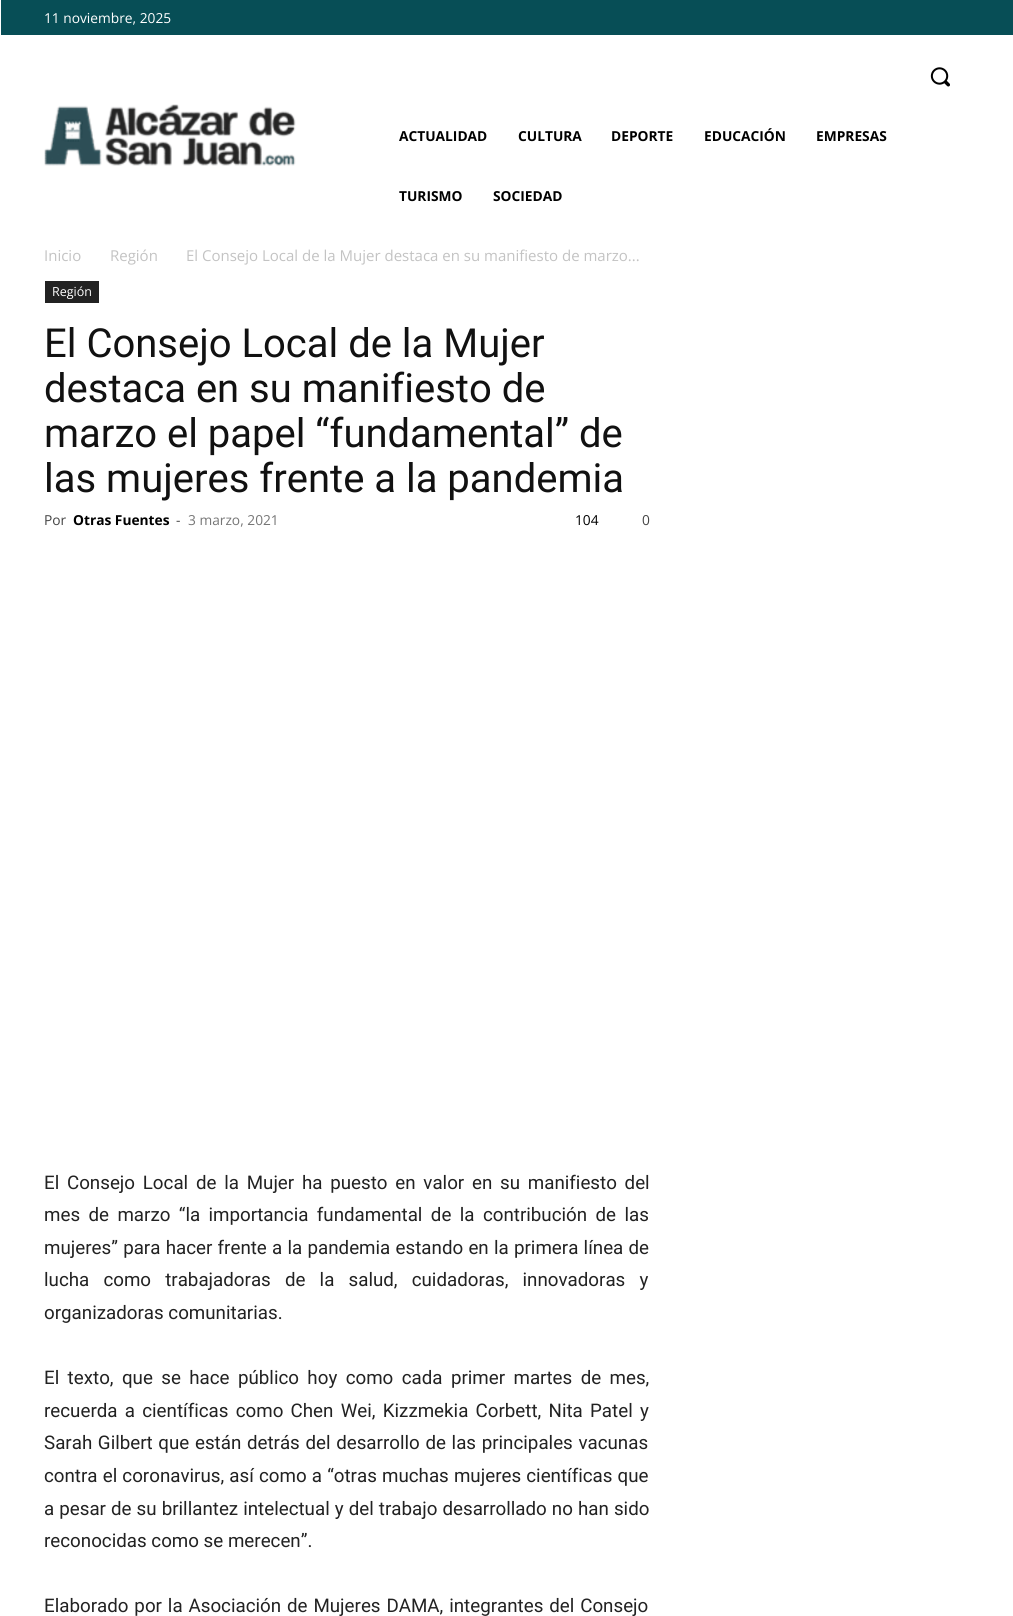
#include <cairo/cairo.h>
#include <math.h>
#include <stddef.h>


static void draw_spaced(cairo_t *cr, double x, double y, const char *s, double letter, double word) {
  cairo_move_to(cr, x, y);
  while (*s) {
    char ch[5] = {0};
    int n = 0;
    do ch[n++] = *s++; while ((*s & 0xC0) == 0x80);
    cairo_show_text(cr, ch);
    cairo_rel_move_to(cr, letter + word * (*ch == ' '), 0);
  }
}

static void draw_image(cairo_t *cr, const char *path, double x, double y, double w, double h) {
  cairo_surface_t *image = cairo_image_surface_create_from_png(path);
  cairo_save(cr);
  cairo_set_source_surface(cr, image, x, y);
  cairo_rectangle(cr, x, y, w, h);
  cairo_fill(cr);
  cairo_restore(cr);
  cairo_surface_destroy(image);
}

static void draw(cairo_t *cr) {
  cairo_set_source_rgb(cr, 1, 1, 1);
  cairo_paint(cr);
  cairo_set_source_rgb(cr, 7 / 255.0, 78 / 255.0, 86 / 255.0);
  cairo_rectangle(cr, 1, 0, 1012, 35);
  cairo_fill(cr);
  draw_image(cr, "images/1.png", 44, 104, 252, 62);
  draw_image(cr, "images/2.png", 930, 67, 20, 20);
  cairo_set_source_rgb(cr, 34 / 255.0, 34 / 255.0, 34 / 255.0);
  cairo_rectangle(cr, 45, 281, 54, 22);
  cairo_fill(cr);
  cairo_select_font_face(cr, "Open Sans", CAIRO_FONT_SLANT_NORMAL, CAIRO_FONT_WEIGHT_NORMAL);
  cairo_set_font_size(cr, 13.75);
  cairo_set_source_rgb(cr, 1, 1, 1);
  cairo_move_to(cr, 44, 23);
  cairo_show_text(cr, "11 noviembre, 2025");
  cairo_select_font_face(cr, "Open Sans", CAIRO_FONT_SLANT_NORMAL, CAIRO_FONT_WEIGHT_BOLD);
  cairo_set_source_rgb(cr, 0, 0, 0);
  cairo_move_to(cr, 399, 141);
  cairo_show_text(cr, "ACTUALIDAD");
  cairo_move_to(cr, 518, 141);
  cairo_show_text(cr, "CULTURA");
  cairo_move_to(cr, 611, 141);
  cairo_show_text(cr, "DEPORTE");
  cairo_move_to(cr, 704, 141);
  cairo_show_text(cr, "EDUCACIÓN");
  cairo_move_to(cr, 816, 141);
  cairo_show_text(cr, "EMPRESAS");
  cairo_move_to(cr, 399, 201);
  cairo_show_text(cr, "TURISMO");
  cairo_move_to(cr, 493, 201);
  cairo_show_text(cr, "SOCIEDAD");
  cairo_select_font_face(cr, "Open Sans", CAIRO_FONT_SLANT_NORMAL, CAIRO_FONT_WEIGHT_NORMAL);
  cairo_set_font_size(cr, 15);
  cairo_set_source_rgb(cr, 195 / 255.0, 195 / 255.0, 195 / 255.0);
  cairo_move_to(cr, 44, 261);
  cairo_show_text(cr, "Inicio");
  cairo_move_to(cr, 110, 261);
  cairo_show_text(cr, "Región");
  cairo_move_to(cr, 186, 261);
  cairo_show_text(cr, "El Consejo Local de la Mujer destaca en su manifiesto de marzo...");
  cairo_set_font_size(cr, 12.5);
  cairo_set_source_rgb(cr, 1, 1, 1);
  cairo_move_to(cr, 52, 296);
  cairo_show_text(cr, "Región");
  cairo_select_font_face(cr, "Roboto", CAIRO_FONT_SLANT_NORMAL, CAIRO_FONT_WEIGHT_NORMAL);
  cairo_set_font_size(cr, 40);
  cairo_set_source_rgb(cr, 17 / 255.0, 17 / 255.0, 17 / 255.0);
  cairo_move_to(cr, 44, 357);
  cairo_show_text(cr, "El Consejo Local de la Mujer");
  cairo_move_to(cr, 44, 402);
  cairo_show_text(cr, "destaca en su manifiesto de");
  cairo_move_to(cr, 44, 447);
  cairo_show_text(cr, "marzo el papel “fundamental” de");
  cairo_move_to(cr, 44, 492);
  cairo_show_text(cr, "las mujeres frente a la pandemia");
  cairo_select_font_face(cr, "Open Sans", CAIRO_FONT_SLANT_NORMAL, CAIRO_FONT_WEIGHT_NORMAL);
  cairo_set_font_size(cr, 13.75);
  cairo_set_source_rgb(cr, 68 / 255.0, 68 / 255.0, 68 / 255.0);
  cairo_move_to(cr, 44, 525);
  cairo_show_text(cr, "Por");
  cairo_select_font_face(cr, "Open Sans", CAIRO_FONT_SLANT_NORMAL, CAIRO_FONT_WEIGHT_BOLD);
  cairo_set_source_rgb(cr, 0, 0, 0);
  cairo_move_to(cr, 73, 525);
  cairo_show_text(cr, "Otras Fuentes");
  cairo_select_font_face(cr, "Open Sans", CAIRO_FONT_SLANT_NORMAL, CAIRO_FONT_WEIGHT_NORMAL);
  cairo_set_source_rgb(cr, 68 / 255.0, 68 / 255.0, 68 / 255.0);
  cairo_move_to(cr, 176, 525);
  cairo_show_text(cr, "-");
  cairo_set_source_rgb(cr, 118 / 255.0, 118 / 255.0, 118 / 255.0);
  cairo_move_to(cr, 188, 525);
  cairo_show_text(cr, "3 marzo, 2021");
  cairo_set_source_rgb(cr, 0, 0, 0);
  cairo_move_to(cr, 575, 525);
  cairo_show_text(cr, "104");
  cairo_set_source_rgb(cr, 68 / 255.0, 68 / 255.0, 68 / 255.0);
  cairo_move_to(cr, 642, 525);
  cairo_show_text(cr, "0");
  cairo_select_font_face(cr, "Roboto", CAIRO_FONT_SLANT_NORMAL, CAIRO_FONT_WEIGHT_NORMAL);
  cairo_set_font_size(cr, 18.75);
  cairo_set_source_rgb(cr, 34 / 255.0, 34 / 255.0, 34 / 255.0);
  draw_spaced(cr, 44, 1189, "El Consejo Local de la Mujer ha puesto en valor en su manifiesto del", 0, 3.1);
  draw_spaced(cr, 44, 1221, "mes de marzo “la importancia fundamental de la contribución de las", 0, 3.75);
  draw_spaced(cr, 44, 1254, "mujeres” para hacer frente a la pandemia estando en la primera línea de", 0, 0.6);
  draw_spaced(cr, 44, 1286, "lucha como trabajadoras de la salud, cuidadoras, innovadoras y", 0, 9.5);
  cairo_move_to(cr, 44, 1319);
  cairo_show_text(cr, "organizadoras comunitarias.");
  draw_spaced(cr, 44, 1384, "El texto, que se hace público hoy como cada primer martes de mes,", 0, 3.75);
  draw_spaced(cr, 44, 1417, "recuerda a científicas como Chen Wei, Kizzmekia Corbett, Nita Patel y", 0, 2.6);
  draw_spaced(cr, 44, 1449, "Sarah Gilbert que están detrás del desarrollo de las principales vacunas", 0, 1);
  draw_spaced(cr, 44, 1482, "contra el coronavirus, así como a “otras muchas mujeres científicas que", 0, 0.5);
  draw_spaced(cr, 44, 1515, "a pesar de su brillantez intelectual y del trabajo desarrollado no han sido", 0, 0.4);
  cairo_move_to(cr, 44, 1547);
  cairo_show_text(cr, "reconocidas como se merecen”.");
  draw_spaced(cr, 44, 1612, "Elaborado por la Asociación de Mujeres DAMA, integrantes del Consejo", 0, 1.25);
}

int main(void) {
  cairo_surface_t *surface = cairo_image_surface_create(CAIRO_FORMAT_RGB24, 1013, 1616);
  cairo_t *cr = cairo_create(surface);
  cairo_font_options_t *options = cairo_font_options_create();
  cairo_font_options_set_hint_metrics(options, CAIRO_HINT_METRICS_OFF);
  cairo_font_options_set_hint_style(options, CAIRO_HINT_STYLE_NONE);
  cairo_set_font_options(cr, options);
  cairo_set_miter_limit(cr, 4);
  draw(cr);
  cairo_surface_write_to_png(surface, "out.png");
  cairo_font_options_destroy(options);
  cairo_destroy(cr);
  cairo_surface_destroy(surface);
  return 0;
}
